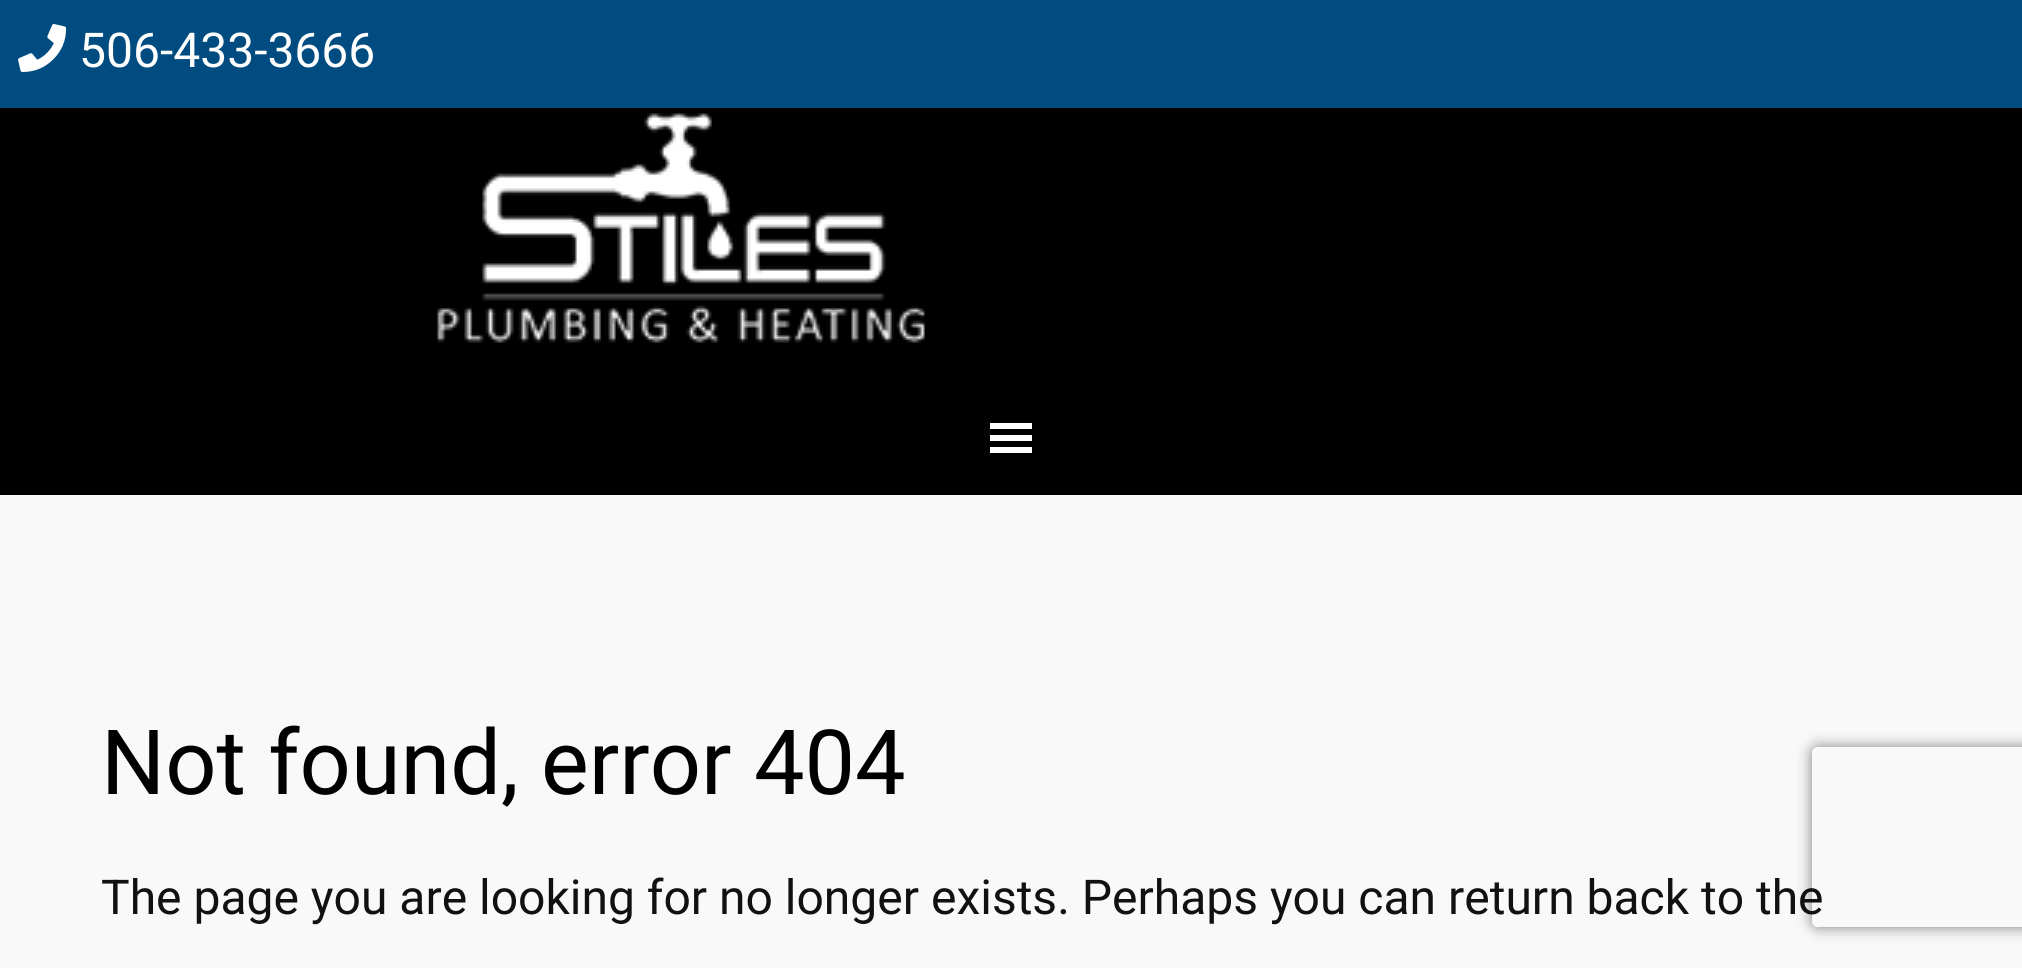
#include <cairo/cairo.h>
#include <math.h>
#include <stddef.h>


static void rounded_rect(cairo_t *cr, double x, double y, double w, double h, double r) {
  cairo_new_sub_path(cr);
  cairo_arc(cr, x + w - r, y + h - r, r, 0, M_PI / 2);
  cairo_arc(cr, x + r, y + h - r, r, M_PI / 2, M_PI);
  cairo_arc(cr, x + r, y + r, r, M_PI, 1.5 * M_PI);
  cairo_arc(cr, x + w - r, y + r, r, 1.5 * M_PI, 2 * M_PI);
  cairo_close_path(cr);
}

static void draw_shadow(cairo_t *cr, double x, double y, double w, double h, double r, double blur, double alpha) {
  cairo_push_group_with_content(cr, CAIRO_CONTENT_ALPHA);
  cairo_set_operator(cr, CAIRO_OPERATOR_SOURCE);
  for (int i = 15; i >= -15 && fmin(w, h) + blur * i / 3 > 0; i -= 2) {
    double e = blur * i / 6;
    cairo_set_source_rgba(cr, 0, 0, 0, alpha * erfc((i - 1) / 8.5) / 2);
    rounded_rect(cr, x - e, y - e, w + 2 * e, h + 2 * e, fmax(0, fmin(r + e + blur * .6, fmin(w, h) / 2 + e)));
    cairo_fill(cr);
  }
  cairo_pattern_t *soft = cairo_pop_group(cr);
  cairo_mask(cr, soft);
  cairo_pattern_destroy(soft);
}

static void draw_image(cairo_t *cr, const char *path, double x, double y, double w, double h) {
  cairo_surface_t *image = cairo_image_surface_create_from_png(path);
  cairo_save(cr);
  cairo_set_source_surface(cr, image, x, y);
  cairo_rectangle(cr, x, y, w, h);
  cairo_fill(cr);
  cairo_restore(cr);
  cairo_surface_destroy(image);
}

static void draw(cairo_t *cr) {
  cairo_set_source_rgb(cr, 249 / 255.0, 249 / 255.0, 249 / 255.0);
  cairo_paint(cr);
  cairo_set_source_rgb(cr, 0, 76 / 255.0, 128 / 255.0);
  cairo_rectangle(cr, 0, 0, 2022, 108);
  cairo_fill(cr);
  draw_image(cr, "images/1.png", 18, 24, 49, 48);
  cairo_set_source_rgb(cr, 0, 0, 0);
  cairo_rectangle(cr, 0, 108, 2022, 387);
  cairo_fill(cr);
  draw_image(cr, "images/2.png", 437, 113, 488, 230);
  cairo_set_source_rgb(cr, 1, 1, 1);
  cairo_new_path(cr);
  cairo_move_to(cr, 990, 453);
  cairo_line_to(cr, 1032, 453);
  cairo_line_to(cr, 1032, 447);
  cairo_line_to(cr, 990, 447);
  cairo_close_path(cr);
  cairo_move_to(cr, 990, 423);
  cairo_line_to(cr, 990, 429);
  cairo_line_to(cr, 1032, 429);
  cairo_line_to(cr, 1032, 423);
  cairo_close_path(cr);
  cairo_move_to(cr, 990, 441);
  cairo_line_to(cr, 1032, 441);
  cairo_line_to(cr, 1032, 435);
  cairo_line_to(cr, 990, 435);
  cairo_close_path(cr);
  cairo_fill(cr);
  cairo_save(cr);
  cairo_set_fill_rule(cr, CAIRO_FILL_RULE_EVEN_ODD);
  cairo_new_path(cr);
  cairo_move_to(cr, 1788, 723);
  cairo_line_to(cr, 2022, 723);
  cairo_line_to(cr, 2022, 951);
  cairo_line_to(cr, 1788, 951);
  cairo_close_path(cr);
  cairo_move_to(cr, 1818, 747);
  cairo_line_to(cr, 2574, 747);
  cairo_curve_to(cr, 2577.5, 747, 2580, 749.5, 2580, 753);
  cairo_line_to(cr, 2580, 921);
  cairo_curve_to(cr, 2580, 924.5, 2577.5, 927, 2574, 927);
  cairo_line_to(cr, 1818, 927);
  cairo_curve_to(cr, 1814.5, 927, 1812, 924.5, 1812, 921);
  cairo_line_to(cr, 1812, 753);
  cairo_curve_to(cr, 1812, 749.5, 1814.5, 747, 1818, 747);
  cairo_close_path(cr);
  cairo_clip(cr);
  cairo_set_source_rgb(cr, 128 / 255.0, 128 / 255.0, 128 / 255.0);
  draw_shadow(cr, 1812, 747, 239, 180, 6, 7.5, 1);
  cairo_restore(cr);
  cairo_select_font_face(cr, "Roboto", CAIRO_FONT_SLANT_NORMAL, CAIRO_FONT_WEIGHT_NORMAL);
  cairo_set_font_size(cr, 48);
  cairo_move_to(cr, 79, 67);
  cairo_show_text(cr, "506-433-3666");
  cairo_set_font_size(cr, 90);
  cairo_set_source_rgb(cr, 0, 0, 0);
  cairo_move_to(cr, 101, 794);
  cairo_show_text(cr, "Not found, error 404");
  cairo_set_font_size(cr, 48);
  cairo_set_source_rgb(cr, 17 / 255.0, 17 / 255.0, 17 / 255.0);
  cairo_move_to(cr, 101, 914);
  cairo_show_text(cr, "The page you are looking for no longer exists. Perhaps you can return back to the");
}

int main(void) {
  cairo_surface_t *surface = cairo_image_surface_create(CAIRO_FORMAT_RGB24, 2022, 968);
  cairo_t *cr = cairo_create(surface);
  cairo_font_options_t *options = cairo_font_options_create();
  cairo_font_options_set_hint_metrics(options, CAIRO_HINT_METRICS_OFF);
  cairo_font_options_set_hint_style(options, CAIRO_HINT_STYLE_NONE);
  cairo_set_font_options(cr, options);
  cairo_set_miter_limit(cr, 4);
  draw(cr);
  cairo_surface_write_to_png(surface, "out.png");
  cairo_font_options_destroy(options);
  cairo_destroy(cr);
  cairo_surface_destroy(surface);
  return 0;
}
